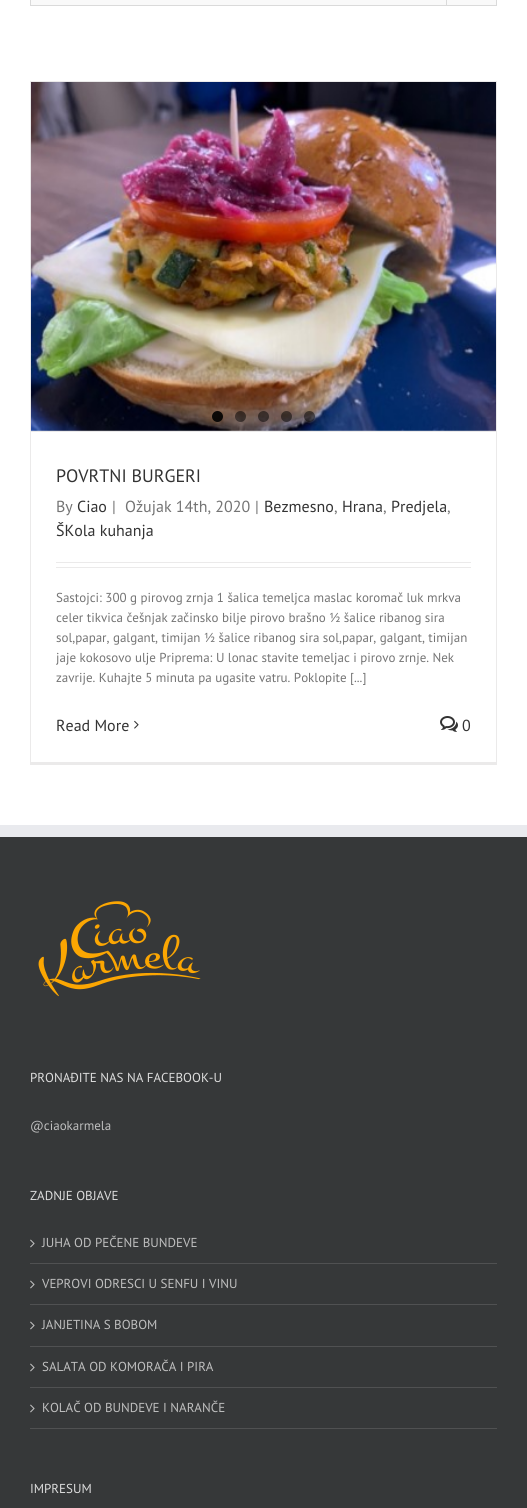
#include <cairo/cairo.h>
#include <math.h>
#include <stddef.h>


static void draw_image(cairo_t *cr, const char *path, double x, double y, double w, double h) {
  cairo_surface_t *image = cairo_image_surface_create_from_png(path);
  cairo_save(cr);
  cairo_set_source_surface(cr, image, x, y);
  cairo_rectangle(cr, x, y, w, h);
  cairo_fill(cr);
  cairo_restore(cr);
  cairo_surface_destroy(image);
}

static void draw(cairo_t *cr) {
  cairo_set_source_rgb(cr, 1, 1, 1);
  cairo_paint(cr);
  cairo_set_source_rgb(cr, 249 / 255.0, 249 / 255.0, 249 / 255.0);
  cairo_rectangle(cr, 30.5, -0.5, 466, 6);
  cairo_fill_preserve(cr);
  cairo_set_source_rgb(cr, 218 / 255.0, 218 / 255.0, 218 / 255.0);
  cairo_set_line_width(cr, 1);
  cairo_stroke(cr);
  cairo_rectangle(cr, 446, 0, 1, 5);
  cairo_fill(cr);
  cairo_set_source_rgb(cr, 235 / 255.0, 234 / 255.0, 234 / 255.0);
  cairo_rectangle(cr, 30, 81, 467, 1);
  cairo_fill(cr);
  cairo_rectangle(cr, 496, 81, 1, 684);
  cairo_fill(cr);
  cairo_rectangle(cr, 30, 762, 467, 3);
  cairo_fill(cr);
  cairo_rectangle(cr, 30, 81, 1, 684);
  cairo_fill(cr);
  cairo_rectangle(cr, 31, 431, 465, 1);
  cairo_fill(cr);
  draw_image(cr, "images/1.png", 31, 82, 465, 349);
  cairo_set_source_rgba(cr, 0, 0, 0, 0.9);
  cairo_arc(cr, 217.5, 416.5, 5.5, 0, 2 * M_PI);
  cairo_fill(cr);
  cairo_set_source_rgba(cr, 0, 0, 0, 0.5);
  cairo_arc(cr, 240.5, 416.5, 5.5, 0, 2 * M_PI);
  cairo_fill(cr);
  cairo_arc(cr, 263.5, 416.5, 5.5, 0, 2 * M_PI);
  cairo_fill(cr);
  cairo_arc(cr, 286.5, 416.5, 5.5, 0, 2 * M_PI);
  cairo_fill(cr);
  cairo_arc(cr, 309.5, 416.5, 5.5, 0, 2 * M_PI);
  cairo_fill(cr);
  cairo_set_source_rgb(cr, 235 / 255.0, 234 / 255.0, 234 / 255.0);
  cairo_rectangle(cr, 56, 562, 415, 1);
  cairo_fill(cr);
  cairo_rectangle(cr, 56, 567, 415, 1);
  cairo_fill(cr);
  draw_image(cr, "images/2.png", 134, 720, 5, 9);
  draw_image(cr, "images/3.png", 440, 716, 18, 16);
  cairo_set_source_rgb(cr, 54 / 255.0, 56 / 255.0, 57 / 255.0);
  cairo_rectangle(cr, 0, 837, 527, 671);
  cairo_fill(cr);
  cairo_set_source_rgb(cr, 233 / 255.0, 234 / 255.0, 238 / 255.0);
  cairo_rectangle(cr, 0, 825, 527, 12);
  cairo_fill(cr);
  draw_image(cr, "images/4.png", 38, 901, 163, 96);
  cairo_set_source_rgb(cr, 80 / 255.0, 81 / 255.0, 82 / 255.0);
  cairo_rectangle(cr, 30, 1263, 467, 1);
  cairo_fill(cr);
  draw_image(cr, "images/5.png", 30, 1239, 5, 9);
  cairo_rectangle(cr, 30, 1304, 467, 1);
  cairo_fill(cr);
  draw_image(cr, "images/5.png", 30, 1280, 5, 9);
  cairo_rectangle(cr, 30, 1346, 467, 1);
  cairo_fill(cr);
  draw_image(cr, "images/5.png", 30, 1321, 5, 9);
  cairo_rectangle(cr, 30, 1387, 467, 1);
  cairo_fill(cr);
  draw_image(cr, "images/5.png", 30, 1363, 5, 9);
  cairo_rectangle(cr, 30, 1428, 467, 1);
  cairo_fill(cr);
  draw_image(cr, "images/5.png", 30, 1404, 5, 9);
  cairo_select_font_face(cr, "PT Sans", CAIRO_FONT_SLANT_NORMAL, CAIRO_FONT_WEIGHT_NORMAL);
  cairo_set_font_size(cr, 18);
  cairo_set_source_rgb(cr, 51 / 255.0, 51 / 255.0, 51 / 255.0);
  cairo_move_to(cr, 56, 482);
  cairo_show_text(cr, "POVRTNI BURGERI");
  cairo_set_font_size(cr, 16);
  cairo_set_source_rgb(cr, 116 / 255.0, 116 / 255.0, 116 / 255.0);
  cairo_move_to(cr, 56, 512);
  cairo_show_text(cr, "By");
  cairo_set_source_rgb(cr, 51 / 255.0, 51 / 255.0, 51 / 255.0);
  cairo_move_to(cr, 77, 512);
  cairo_show_text(cr, "Ciao");
  cairo_set_source_rgb(cr, 116 / 255.0, 116 / 255.0, 116 / 255.0);
  cairo_move_to(cr, 112, 512);
  cairo_show_text(cr, "|");
  cairo_move_to(cr, 125, 512);
  cairo_show_text(cr, "Ožujak 14th, 2020");
  cairo_move_to(cr, 255, 512);
  cairo_show_text(cr, "|");
  cairo_set_source_rgb(cr, 51 / 255.0, 51 / 255.0, 51 / 255.0);
  cairo_move_to(cr, 264, 512);
  cairo_show_text(cr, "Bezmesno");
  cairo_set_source_rgb(cr, 116 / 255.0, 116 / 255.0, 116 / 255.0);
  cairo_move_to(cr, 334, 512);
  cairo_show_text(cr, ",");
  cairo_set_source_rgb(cr, 51 / 255.0, 51 / 255.0, 51 / 255.0);
  cairo_move_to(cr, 342, 512);
  cairo_show_text(cr, "Hrana");
  cairo_set_source_rgb(cr, 116 / 255.0, 116 / 255.0, 116 / 255.0);
  cairo_move_to(cr, 383, 512);
  cairo_show_text(cr, ",");
  cairo_set_source_rgb(cr, 51 / 255.0, 51 / 255.0, 51 / 255.0);
  cairo_move_to(cr, 391, 512);
  cairo_show_text(cr, "Predjela");
  cairo_set_source_rgb(cr, 116 / 255.0, 116 / 255.0, 116 / 255.0);
  cairo_move_to(cr, 447, 512);
  cairo_show_text(cr, ",");
  cairo_set_source_rgb(cr, 51 / 255.0, 51 / 255.0, 51 / 255.0);
  cairo_move_to(cr, 56, 536);
  cairo_show_text(cr, "ŠKola kuhanja");
  cairo_set_font_size(cr, 13);
  cairo_set_source_rgb(cr, 116 / 255.0, 116 / 255.0, 116 / 255.0);
  cairo_move_to(cr, 56, 602);
  cairo_show_text(cr, "Sastojci: 300 g pirovog zrnja 1 šalica temeljca maslac koromač luk mrkva");
  cairo_move_to(cr, 56, 622);
  cairo_show_text(cr, "celer tikvica češnjak začinsko bilje pirovo brašno ½ šalice ribanog sira");
  cairo_move_to(cr, 56, 642);
  cairo_show_text(cr, "sol,papar, galgant, timijan ½ šalice ribanog sira sol,papar, galgant, timijan");
  cairo_move_to(cr, 56, 662);
  cairo_show_text(cr, "jaje kokosovo ulje Priprema: U lonac stavite temeljac i pirovo zrnje. Nek");
  cairo_move_to(cr, 56, 682);
  cairo_show_text(cr, "zavrije. Kuhajte 5 minuta pa ugasite vatru. Poklopite [...]");
  cairo_set_font_size(cr, 16);
  cairo_set_source_rgb(cr, 51 / 255.0, 51 / 255.0, 51 / 255.0);
  cairo_move_to(cr, 56, 731);
  cairo_show_text(cr, "Read More");
  cairo_move_to(cr, 462, 731);
  cairo_show_text(cr, "0");
  cairo_set_font_size(cr, 13);
  cairo_set_source_rgb(cr, 221 / 255.0, 221 / 255.0, 221 / 255.0);
  cairo_move_to(cr, 30, 1082);
  cairo_show_text(cr, "PRONAĐITE NAS NA FACEBOOK-U");
  cairo_set_source_rgb(cr, 191 / 255.0, 191 / 255.0, 191 / 255.0);
  cairo_move_to(cr, 30, 1130);
  cairo_show_text(cr, "@ciaokarmela");
  cairo_set_source_rgb(cr, 221 / 255.0, 221 / 255.0, 221 / 255.0);
  cairo_move_to(cr, 30, 1200);
  cairo_show_text(cr, "ZADNJE OBJAVE");
  cairo_set_source_rgb(cr, 191 / 255.0, 191 / 255.0, 191 / 255.0);
  cairo_move_to(cr, 42, 1247);
  cairo_show_text(cr, "JUHA OD PEČENE BUNDEVE");
  cairo_move_to(cr, 42, 1288);
  cairo_show_text(cr, "VEPROVI ODRESCI U SENFU I VINU");
  cairo_move_to(cr, 42, 1329);
  cairo_show_text(cr, "JANJETINA S BOBOM");
  cairo_move_to(cr, 42, 1371);
  cairo_show_text(cr, "SALATA OD KOMORAČA I PIRA");
  cairo_move_to(cr, 42, 1412);
  cairo_show_text(cr, "KOLAČ OD BUNDEVE I NARANČE");
  cairo_set_source_rgb(cr, 221 / 255.0, 221 / 255.0, 221 / 255.0);
  cairo_move_to(cr, 30, 1493);
  cairo_show_text(cr, "IMPRESUM");
}

int main(void) {
  cairo_surface_t *surface = cairo_image_surface_create(CAIRO_FORMAT_RGB24, 527, 1508);
  cairo_t *cr = cairo_create(surface);
  cairo_font_options_t *options = cairo_font_options_create();
  cairo_font_options_set_hint_metrics(options, CAIRO_HINT_METRICS_OFF);
  cairo_font_options_set_hint_style(options, CAIRO_HINT_STYLE_NONE);
  cairo_set_font_options(cr, options);
  cairo_set_miter_limit(cr, 4);
  draw(cr);
  cairo_surface_write_to_png(surface, "out.png");
  cairo_font_options_destroy(options);
  cairo_destroy(cr);
  cairo_surface_destroy(surface);
  return 0;
}
